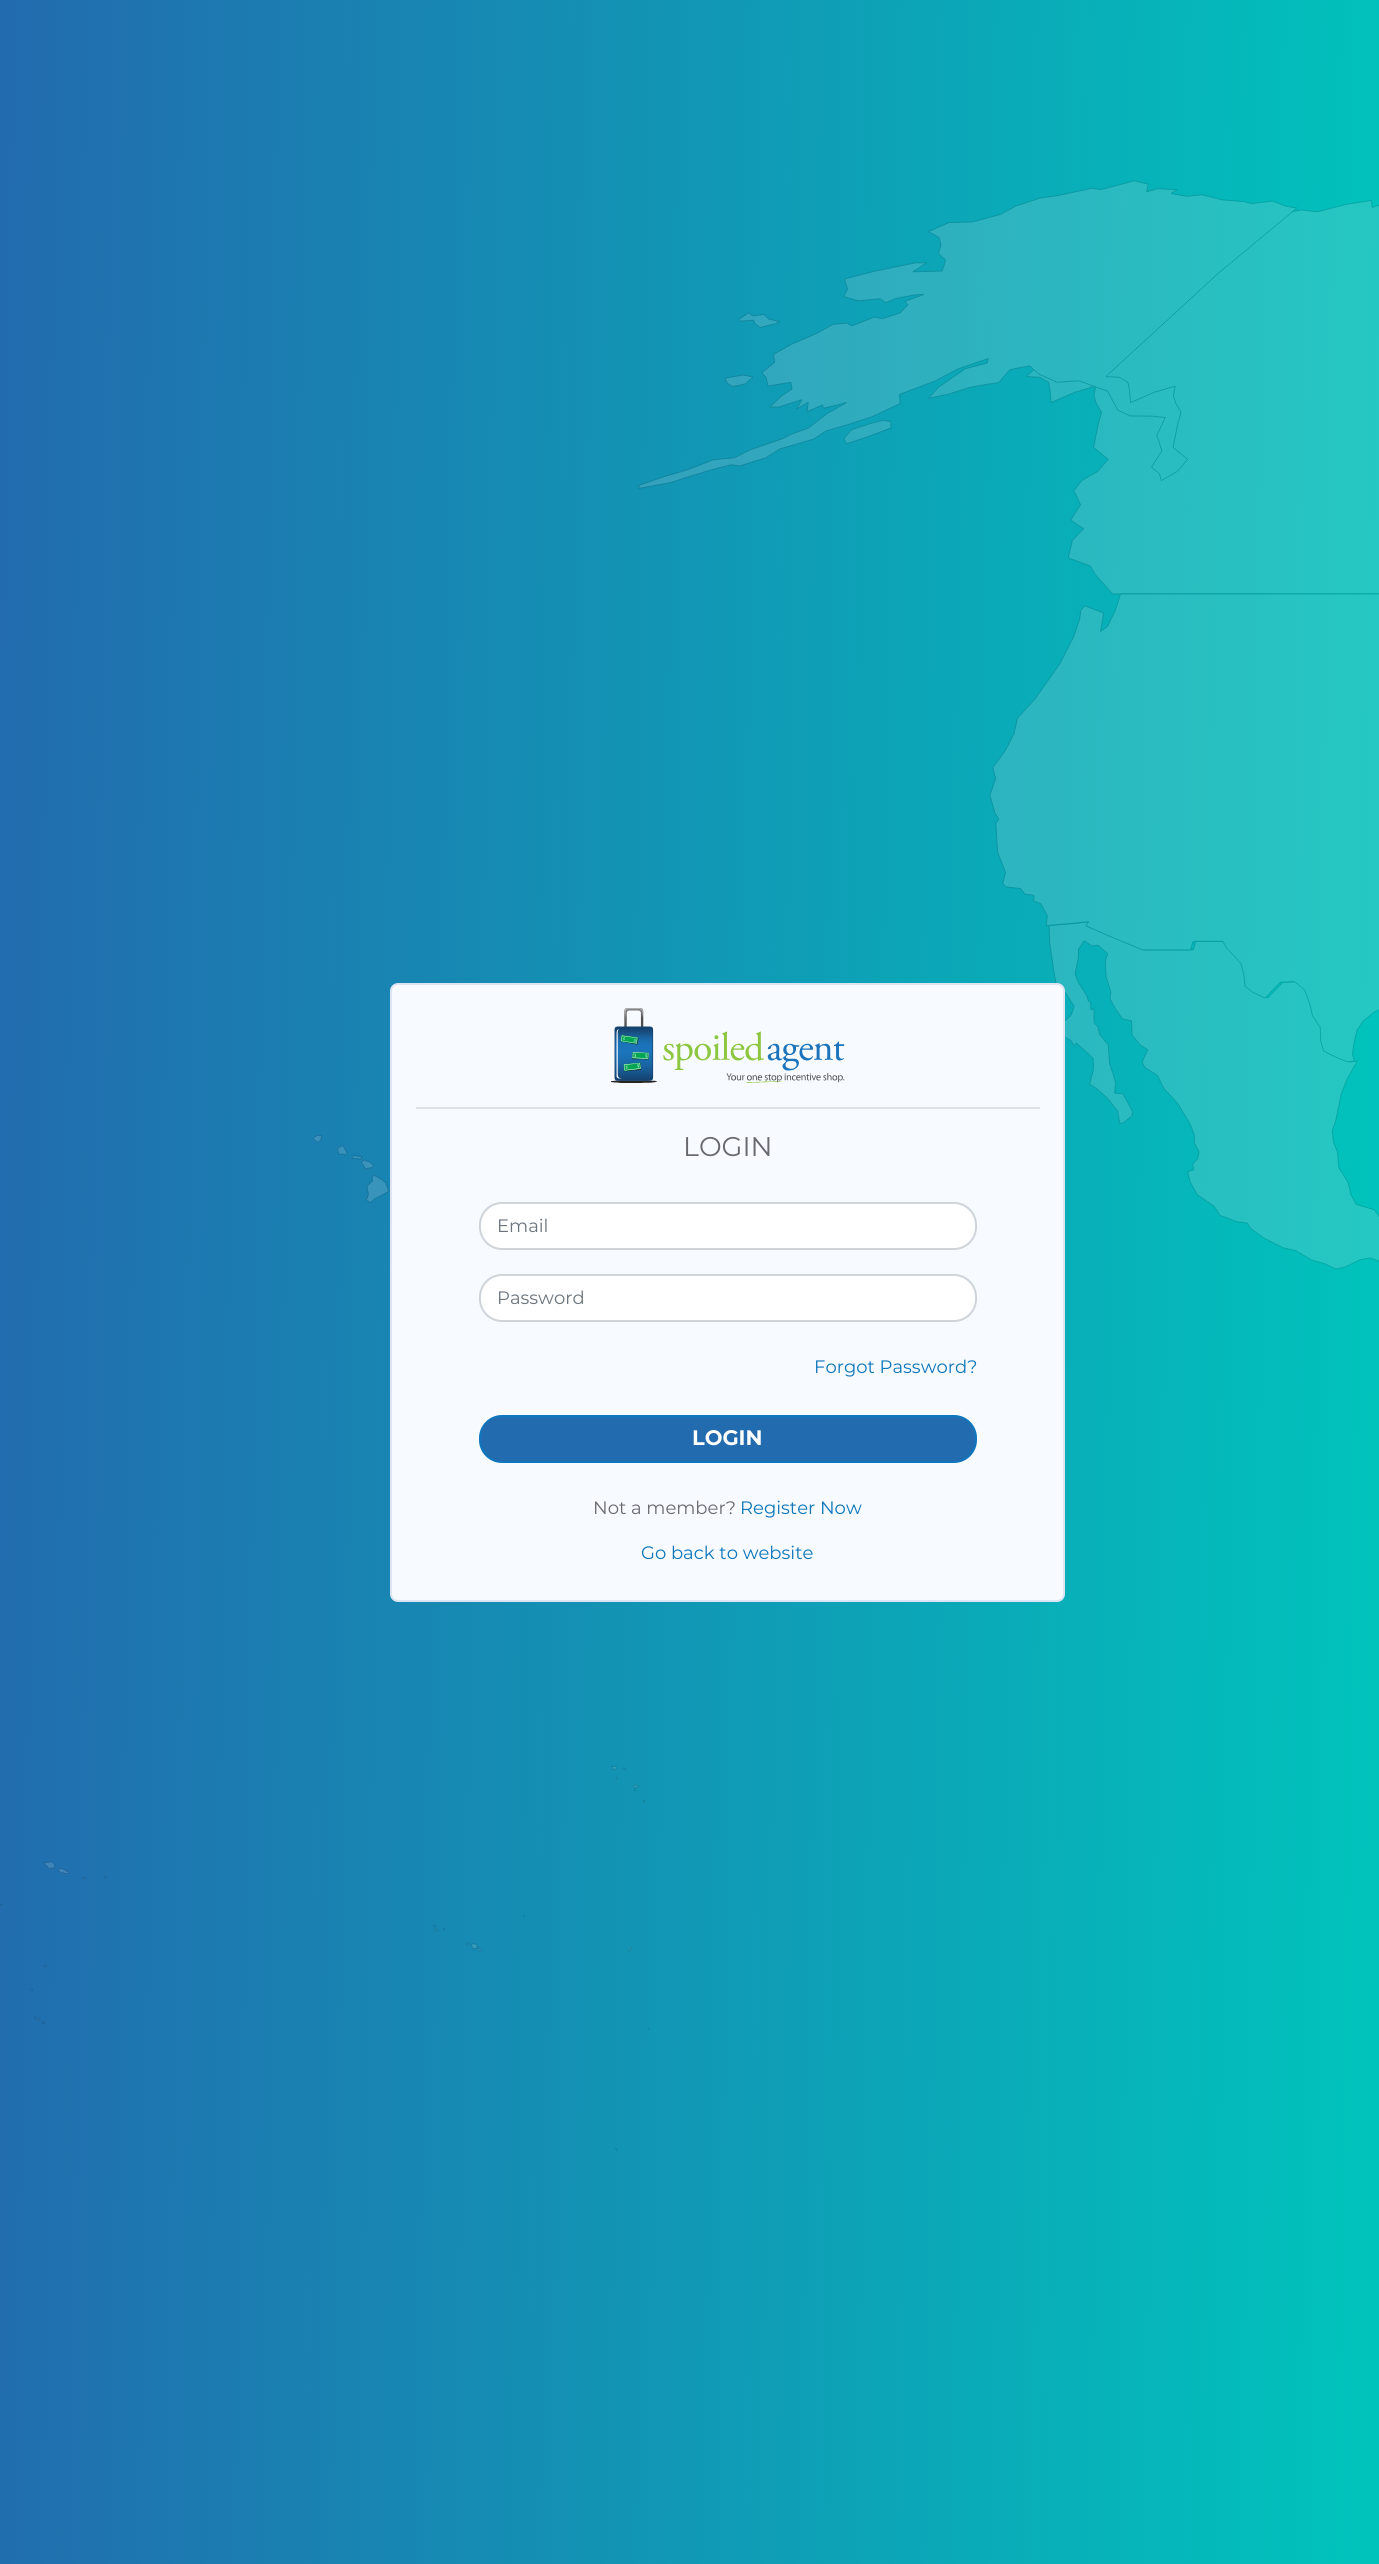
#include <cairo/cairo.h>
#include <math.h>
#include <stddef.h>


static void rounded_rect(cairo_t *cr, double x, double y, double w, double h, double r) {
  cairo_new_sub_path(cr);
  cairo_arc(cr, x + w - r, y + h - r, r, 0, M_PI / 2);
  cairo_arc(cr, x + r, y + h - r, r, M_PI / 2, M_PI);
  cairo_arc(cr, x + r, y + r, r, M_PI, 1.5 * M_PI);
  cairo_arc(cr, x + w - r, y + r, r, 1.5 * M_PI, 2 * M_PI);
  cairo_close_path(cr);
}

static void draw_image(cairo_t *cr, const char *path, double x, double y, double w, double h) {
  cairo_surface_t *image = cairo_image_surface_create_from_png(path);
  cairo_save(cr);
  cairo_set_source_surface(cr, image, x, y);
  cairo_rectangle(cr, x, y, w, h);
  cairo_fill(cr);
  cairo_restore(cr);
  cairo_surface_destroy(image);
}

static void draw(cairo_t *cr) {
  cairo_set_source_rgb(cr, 1, 1, 1);
  cairo_paint(cr);
  draw_image(cr, "images/1.png", 0, 0, 1379, 2564);
  cairo_set_source_rgb(cr, 247 / 255.0, 251 / 255.0, 1);
  rounded_rect(cr, 391, 984, 673, 617, 7);
  cairo_fill_preserve(cr);
  cairo_set_source_rgb(cr, 221 / 255.0, 228 / 255.0, 244 / 255.0);
  cairo_stroke(cr);
  draw_image(cr, "images/2.png", 611, 1008, 234, 75);
  cairo_set_source_rgb(cr, 222 / 255.0, 226 / 255.0, 230 / 255.0);
  cairo_rectangle(cr, 416, 1107, 624, 2);
  cairo_fill(cr);
  cairo_set_source_rgb(cr, 1, 1, 1);
  rounded_rect(cr, 480, 1203, 496, 46, 22);
  cairo_fill_preserve(cr);
  cairo_set_source_rgb(cr, 206 / 255.0, 212 / 255.0, 218 / 255.0);
  cairo_stroke(cr);
  cairo_set_source_rgb(cr, 1, 1, 1);
  rounded_rect(cr, 480, 1275, 496, 46, 22);
  cairo_fill_preserve(cr);
  cairo_set_source_rgb(cr, 206 / 255.0, 212 / 255.0, 218 / 255.0);
  cairo_stroke(cr);
  cairo_set_source_rgb(cr, 34 / 255.0, 107 / 255.0, 174 / 255.0);
  rounded_rect(cr, 480, 1416, 496, 46, 22);
  cairo_fill_preserve(cr);
  cairo_set_source_rgb(cr, 14 / 255.0, 118 / 255.0, 188 / 255.0);
  cairo_stroke(cr);
  cairo_select_font_face(cr, "Montserrat", CAIRO_FONT_SLANT_NORMAL, CAIRO_FONT_WEIGHT_NORMAL);
  cairo_set_font_size(cr, 27);
  cairo_set_source_rgb(cr, 106 / 255.0, 105 / 255.0, 114 / 255.0);
  cairo_move_to(cr, 683, 1156);
  cairo_show_text(cr, "LOGIN");
  cairo_set_font_size(cr, 18);
  cairo_set_source_rgb(cr, 108 / 255.0, 117 / 255.0, 125 / 255.0);
  cairo_move_to(cr, 497, 1232);
  cairo_show_text(cr, "Email");
  cairo_move_to(cr, 497, 1304);
  cairo_show_text(cr, "Password");
  cairo_set_source_rgb(cr, 14 / 255.0, 118 / 255.0, 188 / 255.0);
  cairo_move_to(cr, 814, 1373);
  cairo_show_text(cr, "Forgot Password?");
  cairo_select_font_face(cr, "Montserrat", CAIRO_FONT_SLANT_NORMAL, CAIRO_FONT_WEIGHT_BOLD);
  cairo_set_font_size(cr, 21);
  cairo_set_source_rgb(cr, 1, 1, 1);
  cairo_move_to(cr, 692, 1445);
  cairo_show_text(cr, "LOGIN");
  cairo_select_font_face(cr, "Montserrat", CAIRO_FONT_SLANT_NORMAL, CAIRO_FONT_WEIGHT_NORMAL);
  cairo_set_font_size(cr, 18);
  cairo_set_source_rgb(cr, 106 / 255.0, 105 / 255.0, 114 / 255.0);
  cairo_move_to(cr, 593, 1514);
  cairo_show_text(cr, "Not a member?");
  cairo_set_source_rgb(cr, 14 / 255.0, 118 / 255.0, 188 / 255.0);
  cairo_move_to(cr, 740, 1514);
  cairo_show_text(cr, "Register Now");
  cairo_move_to(cr, 641, 1559);
  cairo_show_text(cr, "Go back to website");
}

int main(void) {
  cairo_surface_t *surface = cairo_image_surface_create(CAIRO_FORMAT_RGB24, 1379, 2564);
  cairo_t *cr = cairo_create(surface);
  cairo_font_options_t *options = cairo_font_options_create();
  cairo_font_options_set_hint_metrics(options, CAIRO_HINT_METRICS_OFF);
  cairo_font_options_set_hint_style(options, CAIRO_HINT_STYLE_NONE);
  cairo_set_font_options(cr, options);
  cairo_set_miter_limit(cr, 4);
  draw(cr);
  cairo_surface_write_to_png(surface, "out.png");
  cairo_font_options_destroy(options);
  cairo_destroy(cr);
  cairo_surface_destroy(surface);
  return 0;
}
